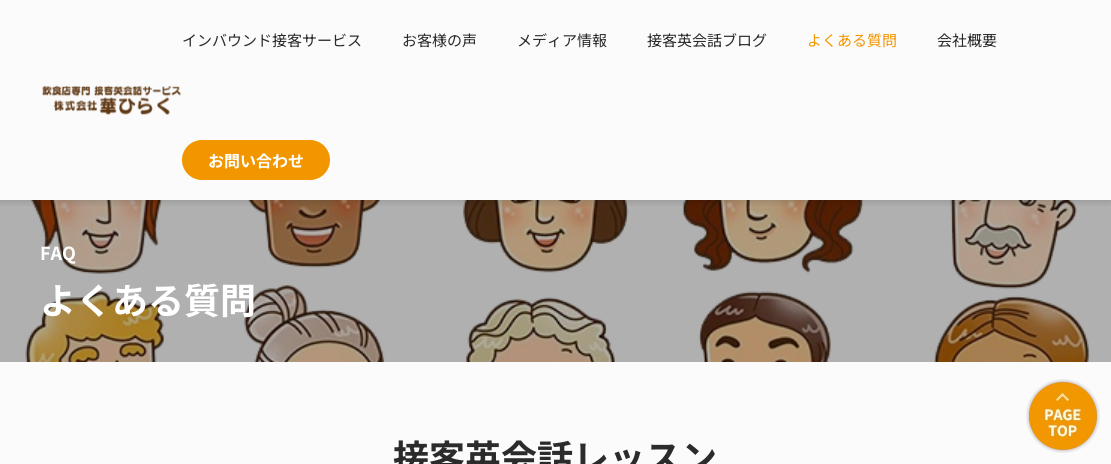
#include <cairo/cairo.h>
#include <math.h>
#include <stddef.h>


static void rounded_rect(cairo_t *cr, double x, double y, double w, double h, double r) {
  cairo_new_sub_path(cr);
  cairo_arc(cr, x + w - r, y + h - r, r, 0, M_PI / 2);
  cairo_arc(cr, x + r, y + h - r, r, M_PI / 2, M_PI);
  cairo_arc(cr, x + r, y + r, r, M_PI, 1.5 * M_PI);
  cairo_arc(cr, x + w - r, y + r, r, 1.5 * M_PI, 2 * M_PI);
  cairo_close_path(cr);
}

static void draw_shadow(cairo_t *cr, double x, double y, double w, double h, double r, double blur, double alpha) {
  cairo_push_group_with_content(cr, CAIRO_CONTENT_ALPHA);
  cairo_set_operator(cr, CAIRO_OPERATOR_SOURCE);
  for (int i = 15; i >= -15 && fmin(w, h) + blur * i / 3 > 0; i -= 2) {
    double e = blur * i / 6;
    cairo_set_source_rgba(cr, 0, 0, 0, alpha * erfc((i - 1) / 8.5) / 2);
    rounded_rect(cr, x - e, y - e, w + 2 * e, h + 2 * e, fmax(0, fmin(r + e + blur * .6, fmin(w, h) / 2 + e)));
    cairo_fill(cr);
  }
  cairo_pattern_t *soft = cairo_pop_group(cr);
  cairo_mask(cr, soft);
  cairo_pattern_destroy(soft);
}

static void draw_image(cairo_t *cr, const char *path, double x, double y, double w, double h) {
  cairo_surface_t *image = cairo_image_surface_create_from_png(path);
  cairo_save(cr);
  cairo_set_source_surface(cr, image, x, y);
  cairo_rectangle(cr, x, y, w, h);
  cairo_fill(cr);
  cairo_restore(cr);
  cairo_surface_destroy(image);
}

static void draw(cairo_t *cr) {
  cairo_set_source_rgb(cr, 251 / 255.0, 251 / 255.0, 251 / 255.0);
  cairo_paint(cr);
  cairo_set_source_rgb(cr, 176 / 255.0, 176 / 255.0, 176 / 255.0);
  cairo_rectangle(cr, 0, 200, 1111, 162);
  cairo_fill(cr);
  draw_image(cr, "images/2.png", 25, 200, 1064, 162);
  cairo_save(cr);
  cairo_rectangle(cr, 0, 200, 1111, 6);
  cairo_clip(cr);
  cairo_set_source_rgb(cr, 0, 0, 0);
  draw_shadow(cr, 0, 0, 1111, 200, 0, 5, 0.2);
  cairo_restore(cr);
  draw_image(cr, "images/1.png", 42, 85, 140, 30);
  cairo_set_source_rgb(cr, 242 / 255.0, 150 / 255.0, 0);
  rounded_rect(cr, 182, 140, 148, 40, 20);
  cairo_fill(cr);
  draw_image(cr, "images/3.png", 1026, 379, 74, 74);
  cairo_select_font_face(cr, "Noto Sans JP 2 Thin", CAIRO_FONT_SLANT_NORMAL, CAIRO_FONT_WEIGHT_NORMAL);
  cairo_set_font_size(cr, 15);
  cairo_set_source_rgb(cr, 43 / 255.0, 43 / 255.0, 43 / 255.0);
  cairo_move_to(cr, 182, 46);
  cairo_show_text(cr, "インバウンド接客サービス");
  cairo_move_to(cr, 402, 46);
  cairo_show_text(cr, "お客様の声");
  cairo_move_to(cr, 517, 46);
  cairo_show_text(cr, "メディア情報");
  cairo_move_to(cr, 647, 46);
  cairo_show_text(cr, "接客英会話ブログ");
  cairo_set_source_rgb(cr, 242 / 255.0, 150 / 255.0, 0);
  cairo_move_to(cr, 807, 46);
  cairo_show_text(cr, "よくある質問");
  cairo_set_source_rgb(cr, 43 / 255.0, 43 / 255.0, 43 / 255.0);
  cairo_move_to(cr, 937, 46);
  cairo_show_text(cr, "会社概要");
  cairo_select_font_face(cr, "Noto Sans JP Thin", CAIRO_FONT_SLANT_NORMAL, CAIRO_FONT_WEIGHT_NORMAL);
  cairo_set_font_size(cr, 16);
  cairo_set_source_rgb(cr, 1, 1, 1);
  cairo_move_to(cr, 208, 167);
  cairo_show_text(cr, "お問い合わせ");
  cairo_set_font_size(cr, 18);
  cairo_move_to(cr, 40, 260);
  cairo_show_text(cr, "FAQ");
  cairo_set_font_size(cr, 36);
  cairo_move_to(cr, 40, 314);
  cairo_show_text(cr, "よくある質問");
  cairo_set_source_rgb(cr, 43 / 255.0, 43 / 255.0, 43 / 255.0);
  cairo_move_to(cr, 393, 471);
  cairo_show_text(cr, "接客英会話レッスン");
}

int main(void) {
  cairo_surface_t *surface = cairo_image_surface_create(CAIRO_FORMAT_RGB24, 1111, 464);
  cairo_t *cr = cairo_create(surface);
  cairo_font_options_t *options = cairo_font_options_create();
  cairo_font_options_set_hint_metrics(options, CAIRO_HINT_METRICS_OFF);
  cairo_font_options_set_hint_style(options, CAIRO_HINT_STYLE_NONE);
  cairo_set_font_options(cr, options);
  cairo_set_miter_limit(cr, 4);
  draw(cr);
  cairo_surface_write_to_png(surface, "out.png");
  cairo_font_options_destroy(options);
  cairo_destroy(cr);
  cairo_surface_destroy(surface);
  return 0;
}
